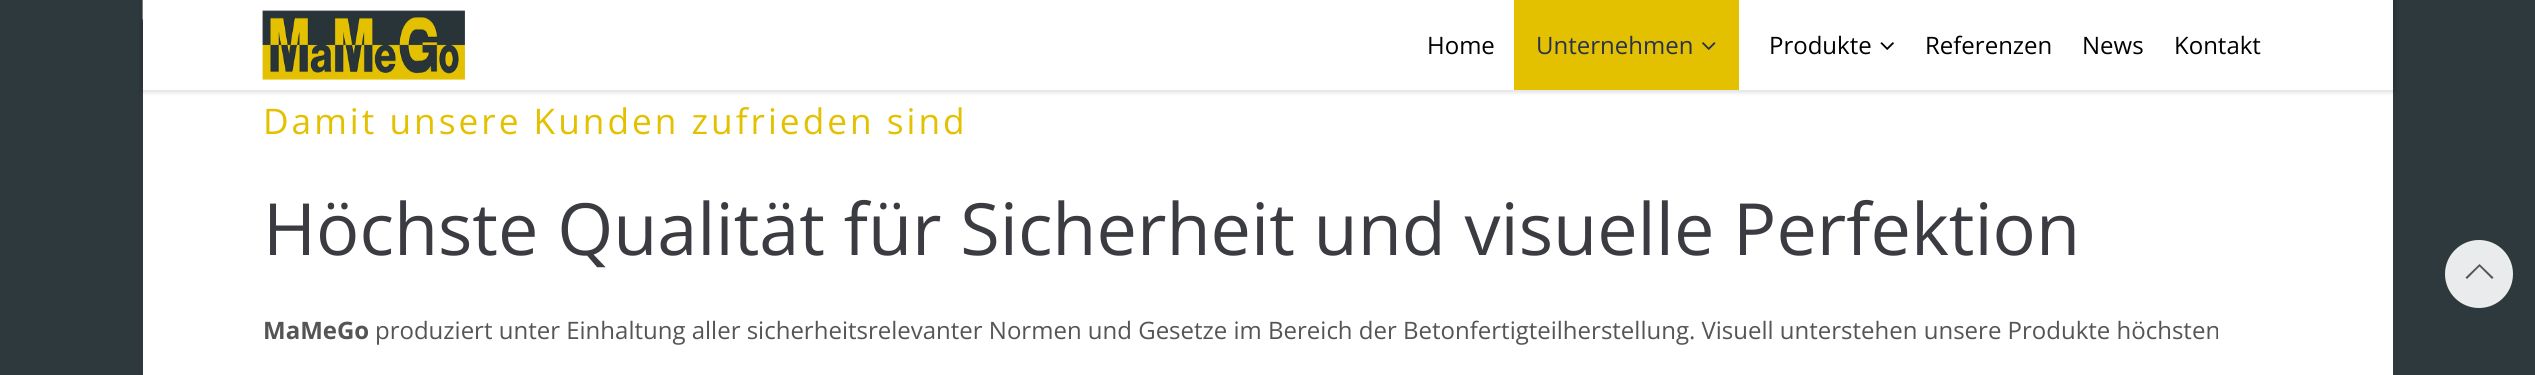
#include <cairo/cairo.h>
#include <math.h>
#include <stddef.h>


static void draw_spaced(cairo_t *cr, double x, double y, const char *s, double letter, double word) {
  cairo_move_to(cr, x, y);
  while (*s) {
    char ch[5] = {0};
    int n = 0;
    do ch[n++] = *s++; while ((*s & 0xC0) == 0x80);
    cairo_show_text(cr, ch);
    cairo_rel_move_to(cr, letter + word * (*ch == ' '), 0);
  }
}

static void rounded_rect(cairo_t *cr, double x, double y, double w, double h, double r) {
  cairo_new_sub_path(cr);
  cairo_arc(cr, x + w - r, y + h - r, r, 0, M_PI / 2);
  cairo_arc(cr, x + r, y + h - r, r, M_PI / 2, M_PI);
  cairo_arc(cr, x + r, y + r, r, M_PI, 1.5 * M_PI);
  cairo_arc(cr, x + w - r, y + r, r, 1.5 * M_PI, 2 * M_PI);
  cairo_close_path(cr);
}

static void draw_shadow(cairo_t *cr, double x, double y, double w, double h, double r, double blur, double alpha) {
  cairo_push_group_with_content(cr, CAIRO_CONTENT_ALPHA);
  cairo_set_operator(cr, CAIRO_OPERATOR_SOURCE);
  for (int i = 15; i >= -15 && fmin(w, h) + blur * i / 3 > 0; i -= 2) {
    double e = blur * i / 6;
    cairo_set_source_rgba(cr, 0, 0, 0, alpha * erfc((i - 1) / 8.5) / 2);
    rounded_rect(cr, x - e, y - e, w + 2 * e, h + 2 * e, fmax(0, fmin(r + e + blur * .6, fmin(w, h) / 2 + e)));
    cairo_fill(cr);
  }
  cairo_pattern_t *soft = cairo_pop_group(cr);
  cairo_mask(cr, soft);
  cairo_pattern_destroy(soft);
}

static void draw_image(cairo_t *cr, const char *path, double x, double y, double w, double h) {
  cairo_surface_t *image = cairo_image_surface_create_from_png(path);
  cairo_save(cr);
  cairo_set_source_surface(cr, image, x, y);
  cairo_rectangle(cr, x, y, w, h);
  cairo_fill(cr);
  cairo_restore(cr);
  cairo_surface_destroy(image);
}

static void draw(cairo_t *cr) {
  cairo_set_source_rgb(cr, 46 / 255.0, 57 / 255.0, 61 / 255.0);
  cairo_paint(cr);
  cairo_set_source_rgb(cr, 1, 1, 1);
  cairo_rectangle(cr, 143, 90, 2250, 285);
  cairo_fill(cr);
  draw_image(cr, "images/4.png", 142, 0, 1, 20);
  cairo_set_source_rgb(cr, 0, 0, 0);
  draw_shadow(cr, 140, -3, 2256, 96, 0, 1.5, 0.1);
  cairo_set_source_rgb(cr, 1, 1, 1);
  cairo_rectangle(cr, 143, 0, 2250, 90);
  cairo_fill(cr);
  draw_image(cr, "images/1.png", 262, 10, 203, 70);
  cairo_set_source_rgb(cr, 227 / 255.0, 193 / 255.0, 0);
  cairo_rectangle(cr, 1514, 0, 225, 90);
  cairo_fill(cr);
  draw_image(cr, "images/2.png", 1702, 42, 14, 8);
  draw_image(cr, "images/3.png", 1880, 42, 14, 8);
  cairo_set_source_rgb(cr, 234 / 255.0, 235 / 255.0, 236 / 255.0);
  cairo_arc(cr, 2479, 274, 33, 0, 2 * M_PI);
  cairo_fill_preserve(cr);
  cairo_set_source_rgb(cr, 235 / 255.0, 237 / 255.0, 235 / 255.0);
  cairo_stroke(cr);
  cairo_set_source_rgb(cr, 85 / 255.0, 85 / 255.0, 85 / 255.0);
  cairo_new_path(cr);
  cairo_move_to(cr, 2493.5, 277.5);
  cairo_line_to(cr, 2492, 279);
  cairo_line_to(cr, 2479.5, 266.5);
  cairo_line_to(cr, 2467, 279);
  cairo_line_to(cr, 2465.5, 277.5);
  cairo_line_to(cr, 2479.5, 264);
  cairo_close_path(cr);
  cairo_fill(cr);
  cairo_select_font_face(cr, "Open Sans", CAIRO_FONT_SLANT_NORMAL, CAIRO_FONT_WEIGHT_NORMAL);
  cairo_set_font_size(cr, 24);
  cairo_set_source_rgb(cr, 0, 0, 0);
  cairo_move_to(cr, 1427, 54);
  cairo_show_text(cr, "Home");
  cairo_set_source_rgb(cr, 40 / 255.0, 49 / 255.0, 78 / 255.0);
  cairo_move_to(cr, 1536, 54);
  cairo_show_text(cr, "Unternehmen");
  cairo_set_source_rgb(cr, 0, 0, 0);
  cairo_move_to(cr, 1769, 54);
  cairo_show_text(cr, "Produkte");
  cairo_move_to(cr, 1925, 54);
  cairo_show_text(cr, "Referenzen");
  cairo_move_to(cr, 2082, 54);
  cairo_show_text(cr, "News");
  cairo_move_to(cr, 2174, 54);
  cairo_show_text(cr, "Kontakt");
  cairo_set_font_size(cr, 35.25);
  cairo_set_source_rgb(cr, 227 / 255.0, 193 / 255.0, 0);
  draw_spaced(cr, 263, 134, "Damit unsere Kunden zufrieden sind", 3, 0);
  cairo_set_font_size(cr, 72);
  cairo_set_source_rgb(cr, 59 / 255.0, 60 / 255.0, 66 / 255.0);
  cairo_move_to(cr, 263, 255);
  cairo_show_text(cr, "Höchste Qualität für Sicherheit und visuelle Perfektion");
  cairo_select_font_face(cr, "Open Sans", CAIRO_FONT_SLANT_NORMAL, CAIRO_FONT_WEIGHT_BOLD);
  cairo_set_font_size(cr, 24);
  cairo_set_source_rgb(cr, 85 / 255.0, 85 / 255.0, 85 / 255.0);
  cairo_move_to(cr, 263, 339);
  cairo_show_text(cr, "MaMeGo");
  cairo_select_font_face(cr, "Open Sans", CAIRO_FONT_SLANT_NORMAL, CAIRO_FONT_WEIGHT_NORMAL);
  cairo_move_to(cr, 375, 339);
  cairo_show_text(cr, "produziert unter Einhaltung aller sicherheitsrelevanter Normen und Gesetze im Bereich der Betonfertigteilherstellung. Visuell unterstehen unsere Produkte höchsten");
}

int main(void) {
  cairo_surface_t *surface = cairo_image_surface_create(CAIRO_FORMAT_RGB24, 2535, 375);
  cairo_t *cr = cairo_create(surface);
  cairo_font_options_t *options = cairo_font_options_create();
  cairo_font_options_set_hint_metrics(options, CAIRO_HINT_METRICS_OFF);
  cairo_font_options_set_hint_style(options, CAIRO_HINT_STYLE_NONE);
  cairo_set_font_options(cr, options);
  cairo_set_miter_limit(cr, 4);
  draw(cr);
  cairo_surface_write_to_png(surface, "out.png");
  cairo_font_options_destroy(options);
  cairo_destroy(cr);
  cairo_surface_destroy(surface);
  return 0;
}
